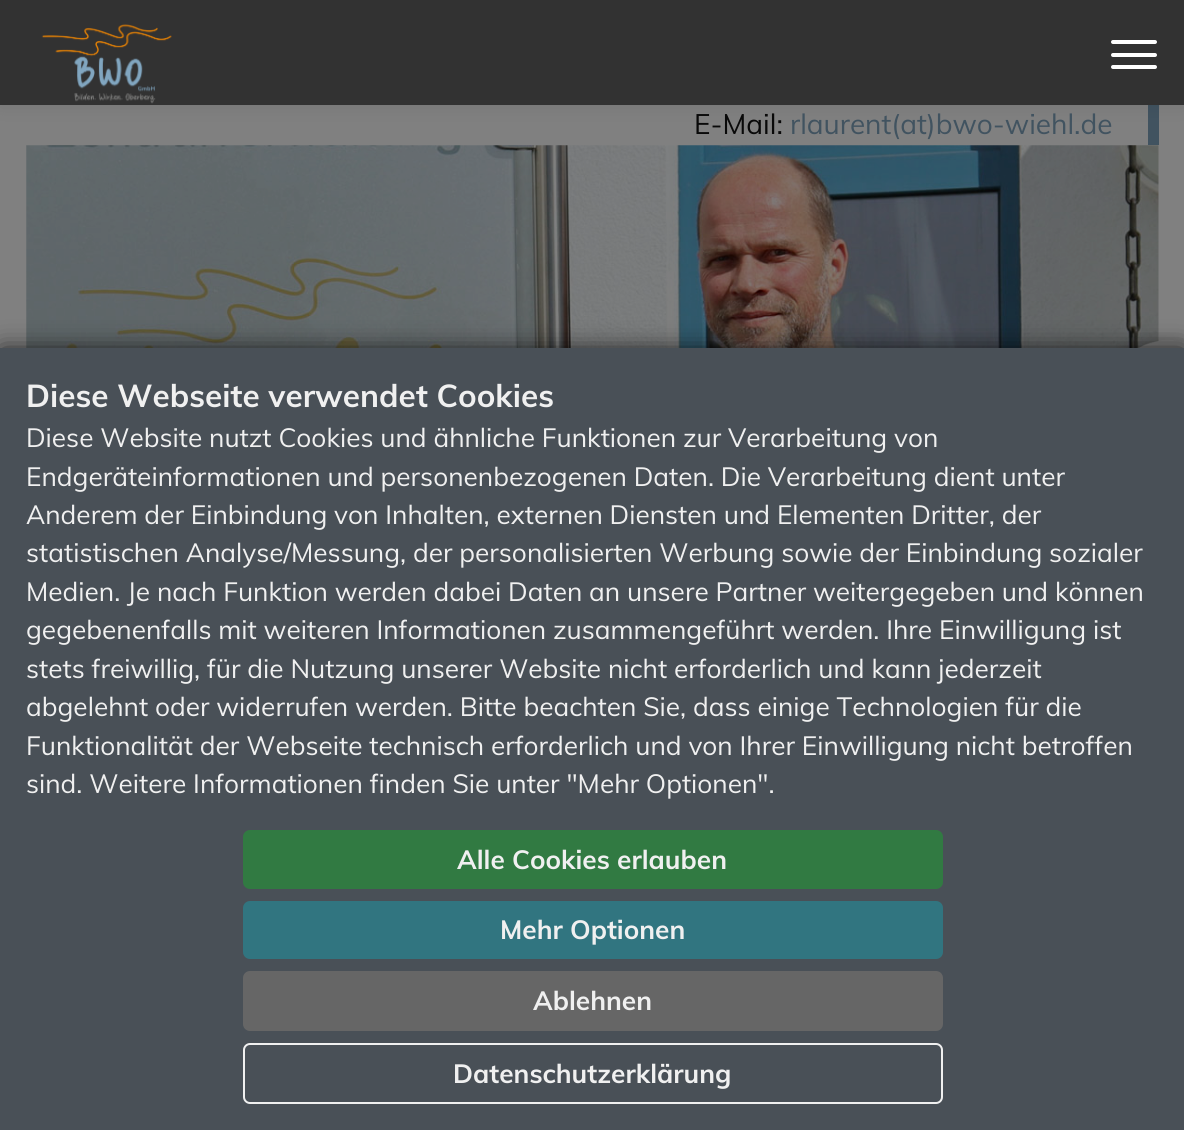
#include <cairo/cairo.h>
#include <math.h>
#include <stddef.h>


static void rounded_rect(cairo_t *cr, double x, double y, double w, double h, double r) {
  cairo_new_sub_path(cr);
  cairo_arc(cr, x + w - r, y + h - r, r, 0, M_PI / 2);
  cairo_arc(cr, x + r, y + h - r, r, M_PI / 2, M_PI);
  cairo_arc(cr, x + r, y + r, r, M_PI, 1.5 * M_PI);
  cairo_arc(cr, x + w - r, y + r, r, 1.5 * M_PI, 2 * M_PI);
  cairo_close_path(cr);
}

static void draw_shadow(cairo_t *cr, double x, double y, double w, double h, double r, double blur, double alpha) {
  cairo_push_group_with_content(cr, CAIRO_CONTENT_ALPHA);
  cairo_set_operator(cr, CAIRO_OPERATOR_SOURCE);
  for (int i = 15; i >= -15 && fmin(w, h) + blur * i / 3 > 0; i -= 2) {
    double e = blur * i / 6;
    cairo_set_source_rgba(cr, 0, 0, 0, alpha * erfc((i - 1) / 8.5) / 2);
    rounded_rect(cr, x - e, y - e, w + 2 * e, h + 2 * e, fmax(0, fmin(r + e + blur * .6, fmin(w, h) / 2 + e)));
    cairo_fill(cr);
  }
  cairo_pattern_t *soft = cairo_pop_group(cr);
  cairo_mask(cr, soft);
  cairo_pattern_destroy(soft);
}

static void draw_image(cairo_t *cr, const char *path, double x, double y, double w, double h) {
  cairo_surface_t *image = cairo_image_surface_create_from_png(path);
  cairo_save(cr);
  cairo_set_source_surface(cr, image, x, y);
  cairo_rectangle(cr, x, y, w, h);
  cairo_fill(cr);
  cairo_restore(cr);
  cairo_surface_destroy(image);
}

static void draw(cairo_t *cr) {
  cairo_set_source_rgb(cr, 128 / 255.0, 128 / 255.0, 128 / 255.0);
  cairo_paint(cr);
  cairo_set_source_rgb(cr, 65 / 255.0, 83 / 255.0, 96 / 255.0);
  cairo_rectangle(cr, 1148, 105, 11, 40);
  cairo_fill(cr);
  cairo_set_source_rgb(cr, 0, 0, 0);
  draw_shadow(cr, 0, 0, 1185, 105, 0, 9, 0.1);
  cairo_set_source_rgb(cr, 50 / 255.0, 50 / 255.0, 50 / 255.0);
  cairo_rectangle(cr, 0, 0, 1184, 105);
  cairo_fill(cr);
  draw_image(cr, "images/1.png", 41, 24, 131, 80);
  cairo_set_source_rgb(cr, 1, 1, 1);
  rounded_rect(cr, 1111, 53, 46, 4, 2);
  cairo_fill(cr);
  rounded_rect(cr, 1111, 40, 46, 4, 2);
  cairo_fill(cr);
  rounded_rect(cr, 1111, 65, 46, 4, 2);
  cairo_fill(cr);
  draw_image(cr, "images/2.png", 26, 145, 1133, 203);
  draw_image(cr, "images/3.png", 1116, 332, 68, 16);
  cairo_set_source_rgb(cr, 0, 0, 0);
  draw_shadow(cr, 2, 352, 1181, 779, 0, 13, 0.9);
  cairo_set_source_rgb(cr, 73 / 255.0, 80 / 255.0, 87 / 255.0);
  cairo_rectangle(cr, 0, 348, 1184, 782);
  cairo_fill(cr);
  cairo_set_source_rgb(cr, 49 / 255.0, 122 / 255.0, 66 / 255.0);
  rounded_rect(cr, 243, 830, 700, 59, 7);
  cairo_fill(cr);
  cairo_set_source_rgb(cr, 49 / 255.0, 117 / 255.0, 128 / 255.0);
  rounded_rect(cr, 243, 901, 700, 58, 7);
  cairo_fill(cr);
  cairo_set_source_rgb(cr, 102 / 255.0, 102 / 255.0, 102 / 255.0);
  rounded_rect(cr, 243, 971, 700, 60, 7);
  cairo_fill(cr);
  rounded_rect(cr, 244, 1044, 698, 59, 6);
  cairo_set_source_rgb(cr, 240 / 255.0, 240 / 255.0, 240 / 255.0);
  cairo_stroke(cr);
  cairo_select_font_face(cr, "Muli", CAIRO_FONT_SLANT_NORMAL, CAIRO_FONT_WEIGHT_NORMAL);
  cairo_set_font_size(cr, 28);
  cairo_set_source_rgb(cr, 9 / 255.0, 9 / 255.0, 9 / 255.0);
  cairo_move_to(cr, 694, 134);
  cairo_show_text(cr, "E-Mail:");
  cairo_set_source_rgb(cr, 65 / 255.0, 83 / 255.0, 96 / 255.0);
  cairo_move_to(cr, 790, 134);
  cairo_show_text(cr, "rlaurent(at)bwo-wiehl.de");
  cairo_select_font_face(cr, "Muli", CAIRO_FONT_SLANT_NORMAL, CAIRO_FONT_WEIGHT_BOLD);
  cairo_set_font_size(cr, 31.5);
  cairo_set_source_rgb(cr, 240 / 255.0, 240 / 255.0, 240 / 255.0);
  cairo_move_to(cr, 26, 407);
  cairo_show_text(cr, "Diese Webseite verwendet Cookies");
  cairo_select_font_face(cr, "Muli", CAIRO_FONT_SLANT_NORMAL, CAIRO_FONT_WEIGHT_NORMAL);
  cairo_set_font_size(cr, 26.25);
  cairo_move_to(cr, 26, 447);
  cairo_show_text(cr, "Diese Website nutzt Cookies und ähnliche Funktionen zur Verarbeitung von");
  cairo_move_to(cr, 26, 486);
  cairo_show_text(cr, "Endgeräteinformationen und personenbezogenen Daten. Die Verarbeitung dient unter");
  cairo_move_to(cr, 26, 524);
  cairo_show_text(cr, "Anderem der Einbindung von Inhalten, externen Diensten und Elementen Dritter, der");
  cairo_move_to(cr, 26, 562);
  cairo_show_text(cr, "statistischen Analyse/Messung, der personalisierten Werbung sowie der Einbindung sozialer");
  cairo_move_to(cr, 26, 601);
  cairo_show_text(cr, "Medien. Je nach Funktion werden dabei Daten an unsere Partner weitergegeben und können");
  cairo_move_to(cr, 26, 639);
  cairo_show_text(cr, "gegebenenfalls mit weiteren Informationen zusammengeführt werden. Ihre Einwilligung ist");
  cairo_move_to(cr, 26, 678);
  cairo_show_text(cr, "stets freiwillig, für die Nutzung unserer Website nicht erforderlich und kann jederzeit");
  cairo_move_to(cr, 26, 716);
  cairo_show_text(cr, "abgelehnt oder widerrufen werden. Bitte beachten Sie, dass einige Technologien für die");
  cairo_move_to(cr, 26, 755);
  cairo_show_text(cr, "Funktionalität der Webseite technisch erforderlich und von Ihrer Einwilligung nicht betroffen");
  cairo_move_to(cr, 26, 793);
  cairo_show_text(cr, "sind. Weitere Informationen finden Sie unter \"Mehr Optionen\".");
  cairo_select_font_face(cr, "Muli", CAIRO_FONT_SLANT_NORMAL, CAIRO_FONT_WEIGHT_BOLD);
  cairo_move_to(cr, 457, 869);
  cairo_show_text(cr, "Alle Cookies erlauben");
  cairo_move_to(cr, 500, 939);
  cairo_show_text(cr, "Mehr Optionen");
  cairo_move_to(cr, 533, 1010);
  cairo_show_text(cr, "Ablehnen");
  cairo_move_to(cr, 453, 1083);
  cairo_show_text(cr, "Datenschutzerklärung");
}

int main(void) {
  cairo_surface_t *surface = cairo_image_surface_create(CAIRO_FORMAT_RGB24, 1184, 1130);
  cairo_t *cr = cairo_create(surface);
  cairo_font_options_t *options = cairo_font_options_create();
  cairo_font_options_set_hint_metrics(options, CAIRO_HINT_METRICS_OFF);
  cairo_font_options_set_hint_style(options, CAIRO_HINT_STYLE_NONE);
  cairo_set_font_options(cr, options);
  cairo_set_miter_limit(cr, 4);
  draw(cr);
  cairo_surface_write_to_png(surface, "out.png");
  cairo_font_options_destroy(options);
  cairo_destroy(cr);
  cairo_surface_destroy(surface);
  return 0;
}
